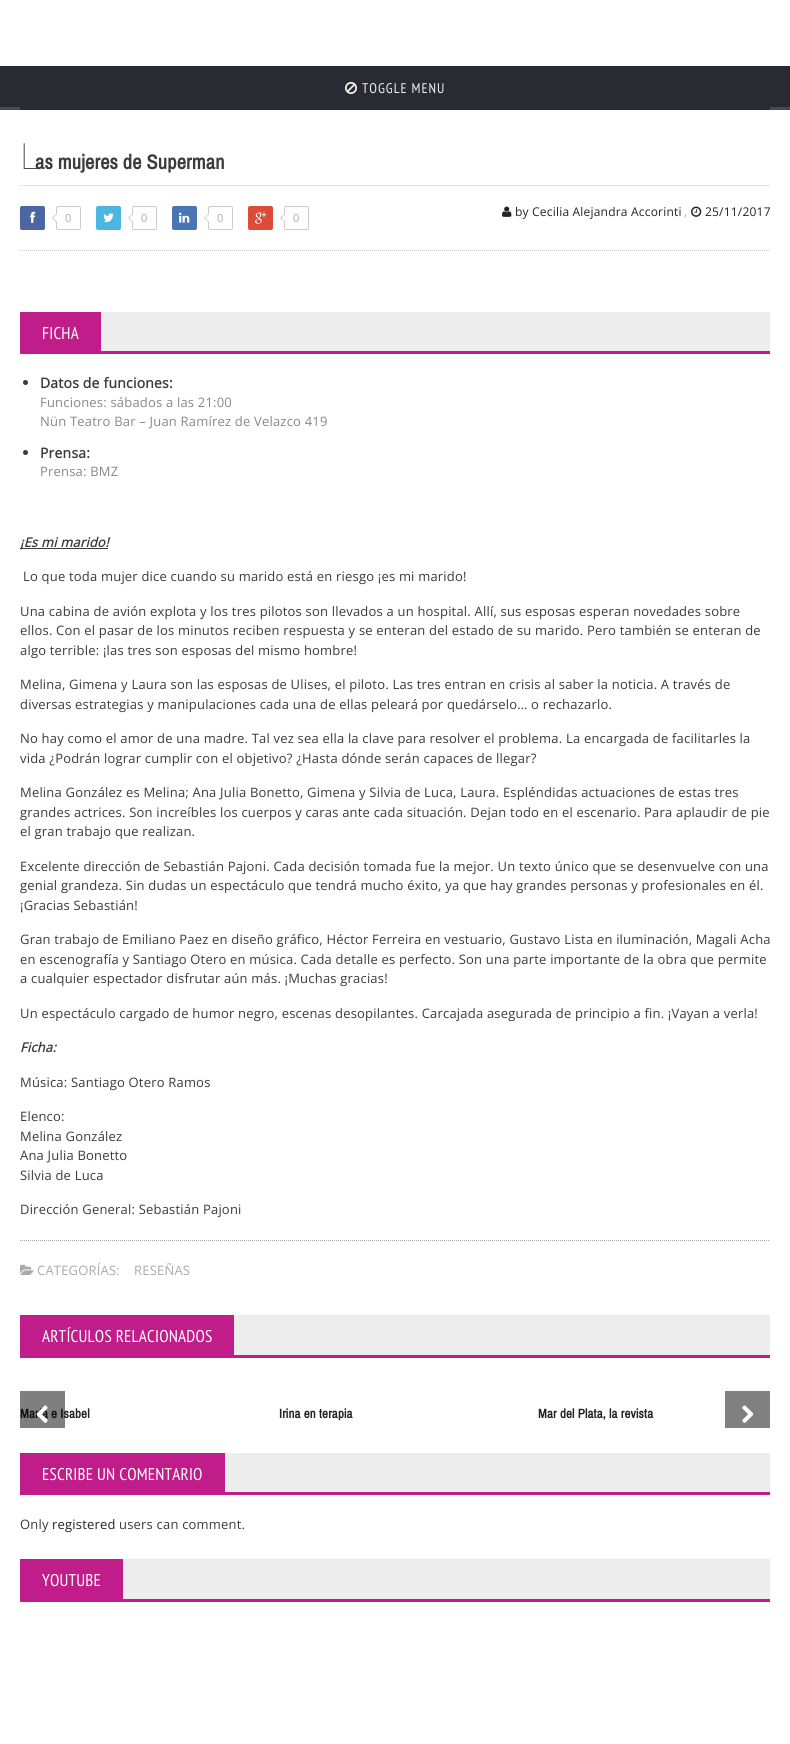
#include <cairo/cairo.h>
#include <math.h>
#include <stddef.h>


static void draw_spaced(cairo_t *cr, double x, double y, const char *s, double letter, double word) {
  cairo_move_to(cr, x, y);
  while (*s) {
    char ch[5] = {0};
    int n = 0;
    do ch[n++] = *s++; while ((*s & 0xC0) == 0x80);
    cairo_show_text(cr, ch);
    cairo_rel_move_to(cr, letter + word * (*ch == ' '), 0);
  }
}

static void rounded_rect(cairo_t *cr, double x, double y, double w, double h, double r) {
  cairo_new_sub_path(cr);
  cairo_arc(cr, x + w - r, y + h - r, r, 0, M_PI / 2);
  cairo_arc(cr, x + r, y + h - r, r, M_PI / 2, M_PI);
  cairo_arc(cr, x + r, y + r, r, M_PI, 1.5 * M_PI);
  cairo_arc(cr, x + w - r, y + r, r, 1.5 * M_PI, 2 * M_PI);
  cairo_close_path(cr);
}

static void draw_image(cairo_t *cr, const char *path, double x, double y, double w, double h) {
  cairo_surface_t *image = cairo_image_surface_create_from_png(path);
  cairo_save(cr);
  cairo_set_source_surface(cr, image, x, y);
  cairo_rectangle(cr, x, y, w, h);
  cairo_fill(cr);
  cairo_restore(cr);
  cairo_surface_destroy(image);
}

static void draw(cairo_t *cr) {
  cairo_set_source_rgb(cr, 1, 1, 1);
  cairo_paint(cr);
  cairo_set_source_rgb(cr, 41 / 255.0, 42 / 255.0, 50 / 255.0);
  cairo_rectangle(cr, 0, 66, 790, 41);
  cairo_fill(cr);
  cairo_set_source_rgb(cr, 73 / 255.0, 74 / 255.0, 81 / 255.0);
  cairo_rectangle(cr, 0, 107, 790, 3);
  cairo_fill(cr);
  cairo_set_source_rgb(cr, 41 / 255.0, 42 / 255.0, 50 / 255.0);
  cairo_rectangle(cr, 20, 107, 750, 3);
  cairo_fill(cr);
  draw_image(cr, "images/1.png", 345, 82, 12, 12);
  cairo_new_path(cr);
  cairo_move_to(cr, 20, 185.5);
  cairo_line_to(cr, 770, 185.5);
  cairo_set_source_rgb(cr, 204 / 255.0, 204 / 255.0, 204 / 255.0);
  cairo_set_line_width(cr, 1);
  cairo_set_dash(cr, (double[]){1, 1}, 2, 0);
  cairo_stroke(cr);
  cairo_new_path(cr);
  cairo_move_to(cr, 20, 250.5);
  cairo_line_to(cr, 770, 250.5);
  cairo_stroke(cr);
  cairo_set_source_rgb(cr, 76 / 255.0, 102 / 255.0, 164 / 255.0);
  rounded_rect(cr, 20, 206, 25, 24, 2);
  cairo_fill(cr);
  draw_image(cr, "images/2.png", 30, 211, 6, 12);
  rounded_rect(cr, 56.5, 206.5, 24, 23, 1.5);
  cairo_set_source_rgb(cr, 204 / 255.0, 204 / 255.0, 204 / 255.0);
  cairo_set_dash(cr, NULL, 0, 0);
  cairo_stroke(cr);
  cairo_set_source_rgb(cr, 1, 1, 1);
  cairo_new_path(cr);
  cairo_move_to(cr, 56, 214);
  cairo_line_to(cr, 60.5, 218);
  cairo_line_to(cr, 56, 222);
  cairo_line_to(cr, 52, 218);
  cairo_close_path(cr);
  cairo_fill(cr);
  cairo_set_source_rgb(cr, 204 / 255.0, 204 / 255.0, 204 / 255.0);
  cairo_new_path(cr);
  cairo_move_to(cr, 52.5, 217.5);
  cairo_line_to(cr, 57, 221.5);
  cairo_line_to(cr, 56, 222);
  cairo_line_to(cr, 52, 218);
  cairo_close_path(cr);
  cairo_fill(cr);
  cairo_new_path(cr);
  cairo_move_to(cr, 56, 214);
  cairo_line_to(cr, 57, 214.5);
  cairo_line_to(cr, 52.5, 218.5);
  cairo_line_to(cr, 52, 218);
  cairo_close_path(cr);
  cairo_fill(cr);
  cairo_set_source_rgb(cr, 76 / 255.0, 182 / 255.0, 226 / 255.0);
  rounded_rect(cr, 96, 206, 25, 24, 2);
  cairo_fill(cr);
  draw_image(cr, "images/3.png", 103, 213, 11, 9);
  rounded_rect(cr, 132.5, 206.5, 24, 23, 1.5);
  cairo_set_source_rgb(cr, 204 / 255.0, 204 / 255.0, 204 / 255.0);
  cairo_stroke(cr);
  cairo_set_source_rgb(cr, 1, 1, 1);
  cairo_new_path(cr);
  cairo_move_to(cr, 132, 214);
  cairo_line_to(cr, 136.5, 218);
  cairo_line_to(cr, 132, 222);
  cairo_line_to(cr, 128, 218);
  cairo_close_path(cr);
  cairo_fill(cr);
  cairo_set_source_rgb(cr, 204 / 255.0, 204 / 255.0, 204 / 255.0);
  cairo_new_path(cr);
  cairo_move_to(cr, 128.5, 217.5);
  cairo_line_to(cr, 133, 221.5);
  cairo_line_to(cr, 132, 222);
  cairo_line_to(cr, 128, 218);
  cairo_close_path(cr);
  cairo_fill(cr);
  cairo_new_path(cr);
  cairo_move_to(cr, 132, 214);
  cairo_line_to(cr, 133, 214.5);
  cairo_line_to(cr, 128.5, 218.5);
  cairo_line_to(cr, 128, 218);
  cairo_close_path(cr);
  cairo_fill(cr);
  cairo_set_source_rgb(cr, 72 / 255.0, 117 / 255.0, 180 / 255.0);
  rounded_rect(cr, 172, 206, 25, 24, 2);
  cairo_fill(cr);
  draw_image(cr, "images/4.png", 179, 212, 11, 11);
  rounded_rect(cr, 208.5, 206.5, 24, 23, 1.5);
  cairo_set_source_rgb(cr, 204 / 255.0, 204 / 255.0, 204 / 255.0);
  cairo_stroke(cr);
  cairo_set_source_rgb(cr, 1, 1, 1);
  cairo_new_path(cr);
  cairo_move_to(cr, 208.5, 214);
  cairo_line_to(cr, 212.5, 218);
  cairo_line_to(cr, 208.5, 222);
  cairo_line_to(cr, 204, 218);
  cairo_close_path(cr);
  cairo_fill(cr);
  cairo_set_source_rgb(cr, 204 / 255.0, 204 / 255.0, 204 / 255.0);
  cairo_new_path(cr);
  cairo_move_to(cr, 204.5, 217.5);
  cairo_line_to(cr, 209, 221.5);
  cairo_line_to(cr, 208.5, 222);
  cairo_line_to(cr, 204, 218);
  cairo_close_path(cr);
  cairo_fill(cr);
  cairo_new_path(cr);
  cairo_move_to(cr, 208.5, 214);
  cairo_line_to(cr, 209, 214.5);
  cairo_line_to(cr, 204.5, 218.5);
  cairo_line_to(cr, 204, 218);
  cairo_close_path(cr);
  cairo_fill(cr);
  cairo_set_source_rgb(cr, 221 / 255.0, 75 / 255.0, 57 / 255.0);
  rounded_rect(cr, 248, 206, 25, 24, 2);
  cairo_fill(cr);
  draw_image(cr, "images/5.png", 255, 212, 12, 12);
  rounded_rect(cr, 284.5, 206.5, 24, 23, 1.5);
  cairo_set_source_rgb(cr, 204 / 255.0, 204 / 255.0, 204 / 255.0);
  cairo_stroke(cr);
  cairo_set_source_rgb(cr, 1, 1, 1);
  cairo_new_path(cr);
  cairo_move_to(cr, 284.5, 214);
  cairo_line_to(cr, 288.5, 218);
  cairo_line_to(cr, 284.5, 222);
  cairo_line_to(cr, 280, 218);
  cairo_close_path(cr);
  cairo_fill(cr);
  cairo_set_source_rgb(cr, 204 / 255.0, 204 / 255.0, 204 / 255.0);
  cairo_new_path(cr);
  cairo_move_to(cr, 281, 217.5);
  cairo_line_to(cr, 285, 221.5);
  cairo_line_to(cr, 284.5, 222);
  cairo_line_to(cr, 280, 218);
  cairo_close_path(cr);
  cairo_fill(cr);
  cairo_new_path(cr);
  cairo_move_to(cr, 284.5, 214);
  cairo_line_to(cr, 285, 214.5);
  cairo_line_to(cr, 281, 218.5);
  cairo_line_to(cr, 280, 218);
  cairo_close_path(cr);
  cairo_fill(cr);
  draw_image(cr, "images/6.png", 502, 206, 10, 11);
  draw_image(cr, "images/7.png", 691, 206, 11, 11);
  cairo_set_source_rgb(cr, 237 / 255.0, 237 / 255.0, 237 / 255.0);
  cairo_rectangle(cr, 101, 312, 669, 39);
  cairo_fill(cr);
  cairo_set_source_rgb(cr, 193 / 255.0, 29 / 255.0, 138 / 255.0);
  cairo_rectangle(cr, 20, 312, 81, 39);
  cairo_fill(cr);
  cairo_rectangle(cr, 20, 351, 750, 3);
  cairo_fill(cr);
  cairo_set_source_rgb(cr, 59 / 255.0, 59 / 255.0, 59 / 255.0);
  cairo_arc(cr, 25.5, 382.5, 2.5, 0, 2 * M_PI);
  cairo_fill(cr);
  cairo_arc(cr, 25.5, 452.5, 2.5, 0, 2 * M_PI);
  cairo_fill(cr);
  cairo_rectangle(cr, 20, 548, 88, 1);
  cairo_fill(cr);
  cairo_new_path(cr);
  cairo_move_to(cr, 20, 1240.5);
  cairo_line_to(cr, 770, 1240.5);
  cairo_set_source_rgb(cr, 170 / 255.0, 170 / 255.0, 170 / 255.0);
  cairo_set_dash(cr, (double[]){1, 1}, 2, 0);
  cairo_stroke(cr);
  draw_image(cr, "images/8.png", 20, 1264, 14, 11);
  cairo_set_source_rgb(cr, 237 / 255.0, 237 / 255.0, 237 / 255.0);
  cairo_rectangle(cr, 234, 1315, 536, 40);
  cairo_fill(cr);
  cairo_set_source_rgb(cr, 193 / 255.0, 29 / 255.0, 138 / 255.0);
  cairo_rectangle(cr, 20, 1315, 214, 40);
  cairo_fill(cr);
  cairo_rectangle(cr, 20, 1355, 750, 3);
  cairo_fill(cr);
  cairo_set_source_rgb(cr, 128 / 255.0, 128 / 255.0, 128 / 255.0);
  cairo_rectangle(cr, 725, 1391, 45, 37);
  cairo_fill(cr);
  draw_image(cr, "images/10.png", 742, 1405, 12, 18);
  cairo_set_source_rgb(cr, 237 / 255.0, 237 / 255.0, 237 / 255.0);
  cairo_rectangle(cr, 225, 1453, 545, 39);
  cairo_fill(cr);
  cairo_set_source_rgb(cr, 193 / 255.0, 29 / 255.0, 138 / 255.0);
  cairo_rectangle(cr, 20, 1453, 205, 39);
  cairo_fill(cr);
  cairo_rectangle(cr, 20, 1492, 750, 3);
  cairo_fill(cr);
  cairo_set_source_rgb(cr, 237 / 255.0, 237 / 255.0, 237 / 255.0);
  cairo_rectangle(cr, 123, 1559, 647, 40);
  cairo_fill(cr);
  cairo_set_source_rgb(cr, 193 / 255.0, 29 / 255.0, 138 / 255.0);
  cairo_rectangle(cr, 20, 1559, 103, 40);
  cairo_fill(cr);
  cairo_rectangle(cr, 20, 1599, 750, 3);
  cairo_fill(cr);
  cairo_select_font_face(cr, "PT Sans Narrow", CAIRO_FONT_SLANT_NORMAL, CAIRO_FONT_WEIGHT_NORMAL);
  cairo_set_font_size(cr, 14);
  cairo_set_source_rgb(cr, 241 / 255.0, 241 / 255.0, 241 / 255.0);
  draw_spaced(cr, 362, 93, "TOGGLE MENU", 1, 0);
  cairo_select_font_face(cr, "Noto Sans Thin", CAIRO_FONT_SLANT_NORMAL, CAIRO_FONT_WEIGHT_NORMAL);
  cairo_set_font_size(cr, 36);
  cairo_set_source_rgb(cr, 59 / 255.0, 59 / 255.0, 59 / 255.0);
  draw_spaced(cr, 20, 169, "L", 0.2, 0);
  cairo_select_font_face(cr, "Pragati Narrow", CAIRO_FONT_SLANT_NORMAL, CAIRO_FONT_WEIGHT_BOLD);
  cairo_set_font_size(cr, 22);
  draw_spaced(cr, 35, 169, "as mujeres de Superman", 0.2, 0);
  cairo_select_font_face(cr, "Open Sans", CAIRO_FONT_SLANT_NORMAL, CAIRO_FONT_WEIGHT_NORMAL);
  cairo_set_font_size(cr, 11);
  cairo_set_source_rgb(cr, 170 / 255.0, 170 / 255.0, 170 / 255.0);
  draw_spaced(cr, 65, 222, "0", 0.2, 0);
  draw_spaced(cr, 141, 222, "0", 0.2, 0);
  draw_spaced(cr, 217, 222, "0", 0.2, 0);
  draw_spaced(cr, 293, 222, "0", 0.2, 0);
  cairo_set_font_size(cr, 12);
  cairo_set_source_rgb(cr, 35 / 255.0, 35 / 255.0, 35 / 255.0);
  draw_spaced(cr, 515, 216, "by Cecilia Alejandra Accorinti", 0.2, 0);
  cairo_set_source_rgb(cr, 170 / 255.0, 170 / 255.0, 170 / 255.0);
  draw_spaced(cr, 684, 216, ",", 0.2, 0);
  cairo_set_source_rgb(cr, 35 / 255.0, 35 / 255.0, 35 / 255.0);
  draw_spaced(cr, 705, 216, "25/11/2017", 0.2, 0);
  cairo_select_font_face(cr, "PT Sans Narrow", CAIRO_FONT_SLANT_NORMAL, CAIRO_FONT_WEIGHT_NORMAL);
  cairo_set_font_size(cr, 17);
  cairo_set_source_rgb(cr, 1, 1, 1);
  draw_spaced(cr, 42, 339, "FICHA", 0.2, 0);
  cairo_select_font_face(cr, "Open Sans", CAIRO_FONT_SLANT_NORMAL, CAIRO_FONT_WEIGHT_BOLD);
  cairo_set_font_size(cr, 14);
  cairo_set_source_rgb(cr, 59 / 255.0, 59 / 255.0, 59 / 255.0);
  draw_spaced(cr, 40, 388, "Datos de funciones:", 0.2, 0);
  cairo_select_font_face(cr, "Open Sans", CAIRO_FONT_SLANT_NORMAL, CAIRO_FONT_WEIGHT_NORMAL);
  cairo_set_font_size(cr, 13);
  cairo_set_source_rgb(cr, 136 / 255.0, 136 / 255.0, 136 / 255.0);
  draw_spaced(cr, 40, 407, "Funciones: sábados a las 21:00", 0.2, 0);
  draw_spaced(cr, 40, 426, "Nün Teatro Bar – Juan Ramírez de Velazco 419", 0.2, 0);
  cairo_select_font_face(cr, "Open Sans", CAIRO_FONT_SLANT_NORMAL, CAIRO_FONT_WEIGHT_BOLD);
  cairo_set_font_size(cr, 14);
  cairo_set_source_rgb(cr, 59 / 255.0, 59 / 255.0, 59 / 255.0);
  draw_spaced(cr, 40, 458, "Prensa:", 0.2, 0);
  cairo_select_font_face(cr, "Open Sans", CAIRO_FONT_SLANT_NORMAL, CAIRO_FONT_WEIGHT_NORMAL);
  cairo_set_font_size(cr, 13);
  cairo_set_source_rgb(cr, 136 / 255.0, 136 / 255.0, 136 / 255.0);
  draw_spaced(cr, 40, 476, "Prensa: BMZ", 0.2, 0);
  cairo_select_font_face(cr, "Open Sans", CAIRO_FONT_SLANT_ITALIC, CAIRO_FONT_WEIGHT_BOLD);
  cairo_set_source_rgb(cr, 59 / 255.0, 59 / 255.0, 59 / 255.0);
  draw_spaced(cr, 20, 547, "¡Es mi marido!", 0.2, 0);
  cairo_select_font_face(cr, "Open Sans", CAIRO_FONT_SLANT_NORMAL, CAIRO_FONT_WEIGHT_NORMAL);
  draw_spaced(cr, 23, 581, "Lo que toda mujer dice cuando su marido está en riesgo ¡es mi marido!", 0.2, 0);
  draw_spaced(cr, 20, 616, "Una cabina de avión explota y los tres pilotos son llevados a un hospital. Allí, sus esposas esperan novedades sobre", 0.2, 0);
  draw_spaced(cr, 20, 635, "ellos. Con el pasar de los minutos reciben respuesta y se enteran del estado de su marido. Pero también se enteran de", 0.2, 0);
  draw_spaced(cr, 20, 655, "algo terrible: ¡las tres son esposas del mismo hombre!", 0.2, 0);
  draw_spaced(cr, 20, 689, "Melina, Gimena y Laura son las esposas de Ulises, el piloto. Las tres entran en crisis al saber la noticia. A través de", 0.2, 0);
  draw_spaced(cr, 20, 709, "diversas estrategias y manipulaciones cada una de ellas peleará por quedárselo… o rechazarlo.", 0.2, 0);
  draw_spaced(cr, 20, 743, "No hay como el amor de una madre. Tal vez sea ella la clave para resolver el problema. La encargada de facilitarles la", 0.2, 0);
  draw_spaced(cr, 20, 763, "vida ¿Podrán lograr cumplir con el objetivo? ¿Hasta dónde serán capaces de llegar?", 0.2, 0);
  draw_spaced(cr, 20, 797, "Melina González es Melina; Ana Julia Bonetto, Gimena y Silvia de Luca, Laura. Espléndidas actuaciones de estas tres", 0.2, 0);
  draw_spaced(cr, 20, 817, "grandes actrices. Son increíbles los cuerpos y caras ante cada situación. Dejan todo en el escenario. Para aplaudir de pie", 0.2, 0);
  draw_spaced(cr, 20, 836, "el gran trabajo que realizan.", 0.2, 0);
  draw_spaced(cr, 20, 871, "Excelente dirección de Sebastián Pajoni. Cada decisión tomada fue la mejor. Un texto único que se desenvuelve con una", 0.2, 0);
  draw_spaced(cr, 20, 890, "genial grandeza. Sin dudas un espectáculo que tendrá mucho éxito, ya que hay grandes personas y profesionales en él.", 0.2, 0);
  draw_spaced(cr, 20, 910, "¡Gracias Sebastián!", 0.2, 0);
  draw_spaced(cr, 20, 944, "Gran trabajo de Emiliano Paez en diseño gráfico, Héctor Ferreira en vestuario, Gustavo Lista en iluminación, Magali Acha", 0.2, 0);
  draw_spaced(cr, 20, 964, "en escenografía y Santiago Otero en música. Cada detalle es perfecto. Son una parte importante de la obra que permite", 0.2, 0);
  draw_spaced(cr, 20, 983, "a cualquier espectador disfrutar aún más. ¡Muchas gracias!", 0.2, 0);
  draw_spaced(cr, 20, 1018, "Un espectáculo cargado de humor negro, escenas desopilantes. Carcajada asegurada de principio a fin. ¡Vayan a verla!", 0.2, 0);
  cairo_select_font_face(cr, "Open Sans", CAIRO_FONT_SLANT_ITALIC, CAIRO_FONT_WEIGHT_BOLD);
  draw_spaced(cr, 20, 1052, "Ficha:", 0.2, 0);
  cairo_select_font_face(cr, "Open Sans", CAIRO_FONT_SLANT_NORMAL, CAIRO_FONT_WEIGHT_NORMAL);
  draw_spaced(cr, 20, 1087, "Música: Santiago Otero Ramos", 0.2, 0);
  draw_spaced(cr, 20, 1121, "Elenco:", 0.2, 0);
  draw_spaced(cr, 20, 1141, "Melina González", 0.2, 0);
  draw_spaced(cr, 20, 1160, "Ana Julia Bonetto", 0.2, 0);
  draw_spaced(cr, 20, 1180, "Silvia de Luca", 0.2, 0);
  draw_spaced(cr, 20, 1214, "Dirección General: Sebastián Pajoni", 0.2, 0);
  cairo_set_source_rgb(cr, 170 / 255.0, 170 / 255.0, 170 / 255.0);
  draw_spaced(cr, 37, 1275, "CATEGORÍAS:", 0.2, 0);
  draw_spaced(cr, 134, 1275, "RESEÑAS", 0.2, 0);
  cairo_select_font_face(cr, "PT Sans Narrow", CAIRO_FONT_SLANT_NORMAL, CAIRO_FONT_WEIGHT_NORMAL);
  cairo_set_font_size(cr, 17);
  cairo_set_source_rgb(cr, 1, 1, 1);
  draw_spaced(cr, 42, 1342, "ARTÍCULOS RELACIONADOS", 0.2, 0);
  cairo_select_font_face(cr, "Pragati Narrow", CAIRO_FONT_SLANT_NORMAL, CAIRO_FONT_WEIGHT_BOLD);
  cairo_set_font_size(cr, 14);
  cairo_set_source_rgb(cr, 35 / 255.0, 35 / 255.0, 35 / 255.0);
  draw_spaced(cr, 20, 1418, "María e Isabel", 0.2, 0);
  cairo_set_source_rgba(cr, 0, 0, 0, 0.5);
  cairo_rectangle(cr, 20, 1391, 45, 37);
  cairo_fill(cr);
  draw_image(cr, "images/9.png", 36, 1405, 12, 18);
  cairo_set_source_rgb(cr, 35 / 255.0, 35 / 255.0, 35 / 255.0);
  draw_spaced(cr, 279, 1418, "Irina en terapia", 0.2, 0);
  draw_spaced(cr, 538, 1418, "Mar del Plata, la revista", 0.2, 0);
  cairo_select_font_face(cr, "PT Sans Narrow", CAIRO_FONT_SLANT_NORMAL, CAIRO_FONT_WEIGHT_NORMAL);
  cairo_set_font_size(cr, 17);
  cairo_set_source_rgb(cr, 1, 1, 1);
  draw_spaced(cr, 42, 1480, "ESCRIBE UN COMENTARIO", 0.2, 0);
  cairo_select_font_face(cr, "Open Sans", CAIRO_FONT_SLANT_NORMAL, CAIRO_FONT_WEIGHT_NORMAL);
  cairo_set_font_size(cr, 13);
  cairo_set_source_rgb(cr, 59 / 255.0, 59 / 255.0, 59 / 255.0);
  draw_spaced(cr, 20, 1529, "Only", 0.2, 0);
  cairo_set_source_rgb(cr, 35 / 255.0, 35 / 255.0, 35 / 255.0);
  draw_spaced(cr, 52, 1529, "registered", 0.2, 0);
  cairo_set_source_rgb(cr, 59 / 255.0, 59 / 255.0, 59 / 255.0);
  draw_spaced(cr, 119, 1529, "users can comment.", 0.2, 0);
  cairo_select_font_face(cr, "PT Sans Narrow", CAIRO_FONT_SLANT_NORMAL, CAIRO_FONT_WEIGHT_NORMAL);
  cairo_set_font_size(cr, 17);
  cairo_set_source_rgb(cr, 1, 1, 1);
  draw_spaced(cr, 42, 1586, "YOUTUBE", 0.2, 0);
}

int main(void) {
  cairo_surface_t *surface = cairo_image_surface_create(CAIRO_FORMAT_RGB24, 790, 1744);
  cairo_t *cr = cairo_create(surface);
  cairo_font_options_t *options = cairo_font_options_create();
  cairo_font_options_set_hint_metrics(options, CAIRO_HINT_METRICS_OFF);
  cairo_font_options_set_hint_style(options, CAIRO_HINT_STYLE_NONE);
  cairo_set_font_options(cr, options);
  cairo_set_miter_limit(cr, 4);
  draw(cr);
  cairo_surface_write_to_png(surface, "out.png");
  cairo_font_options_destroy(options);
  cairo_destroy(cr);
  cairo_surface_destroy(surface);
  return 0;
}
